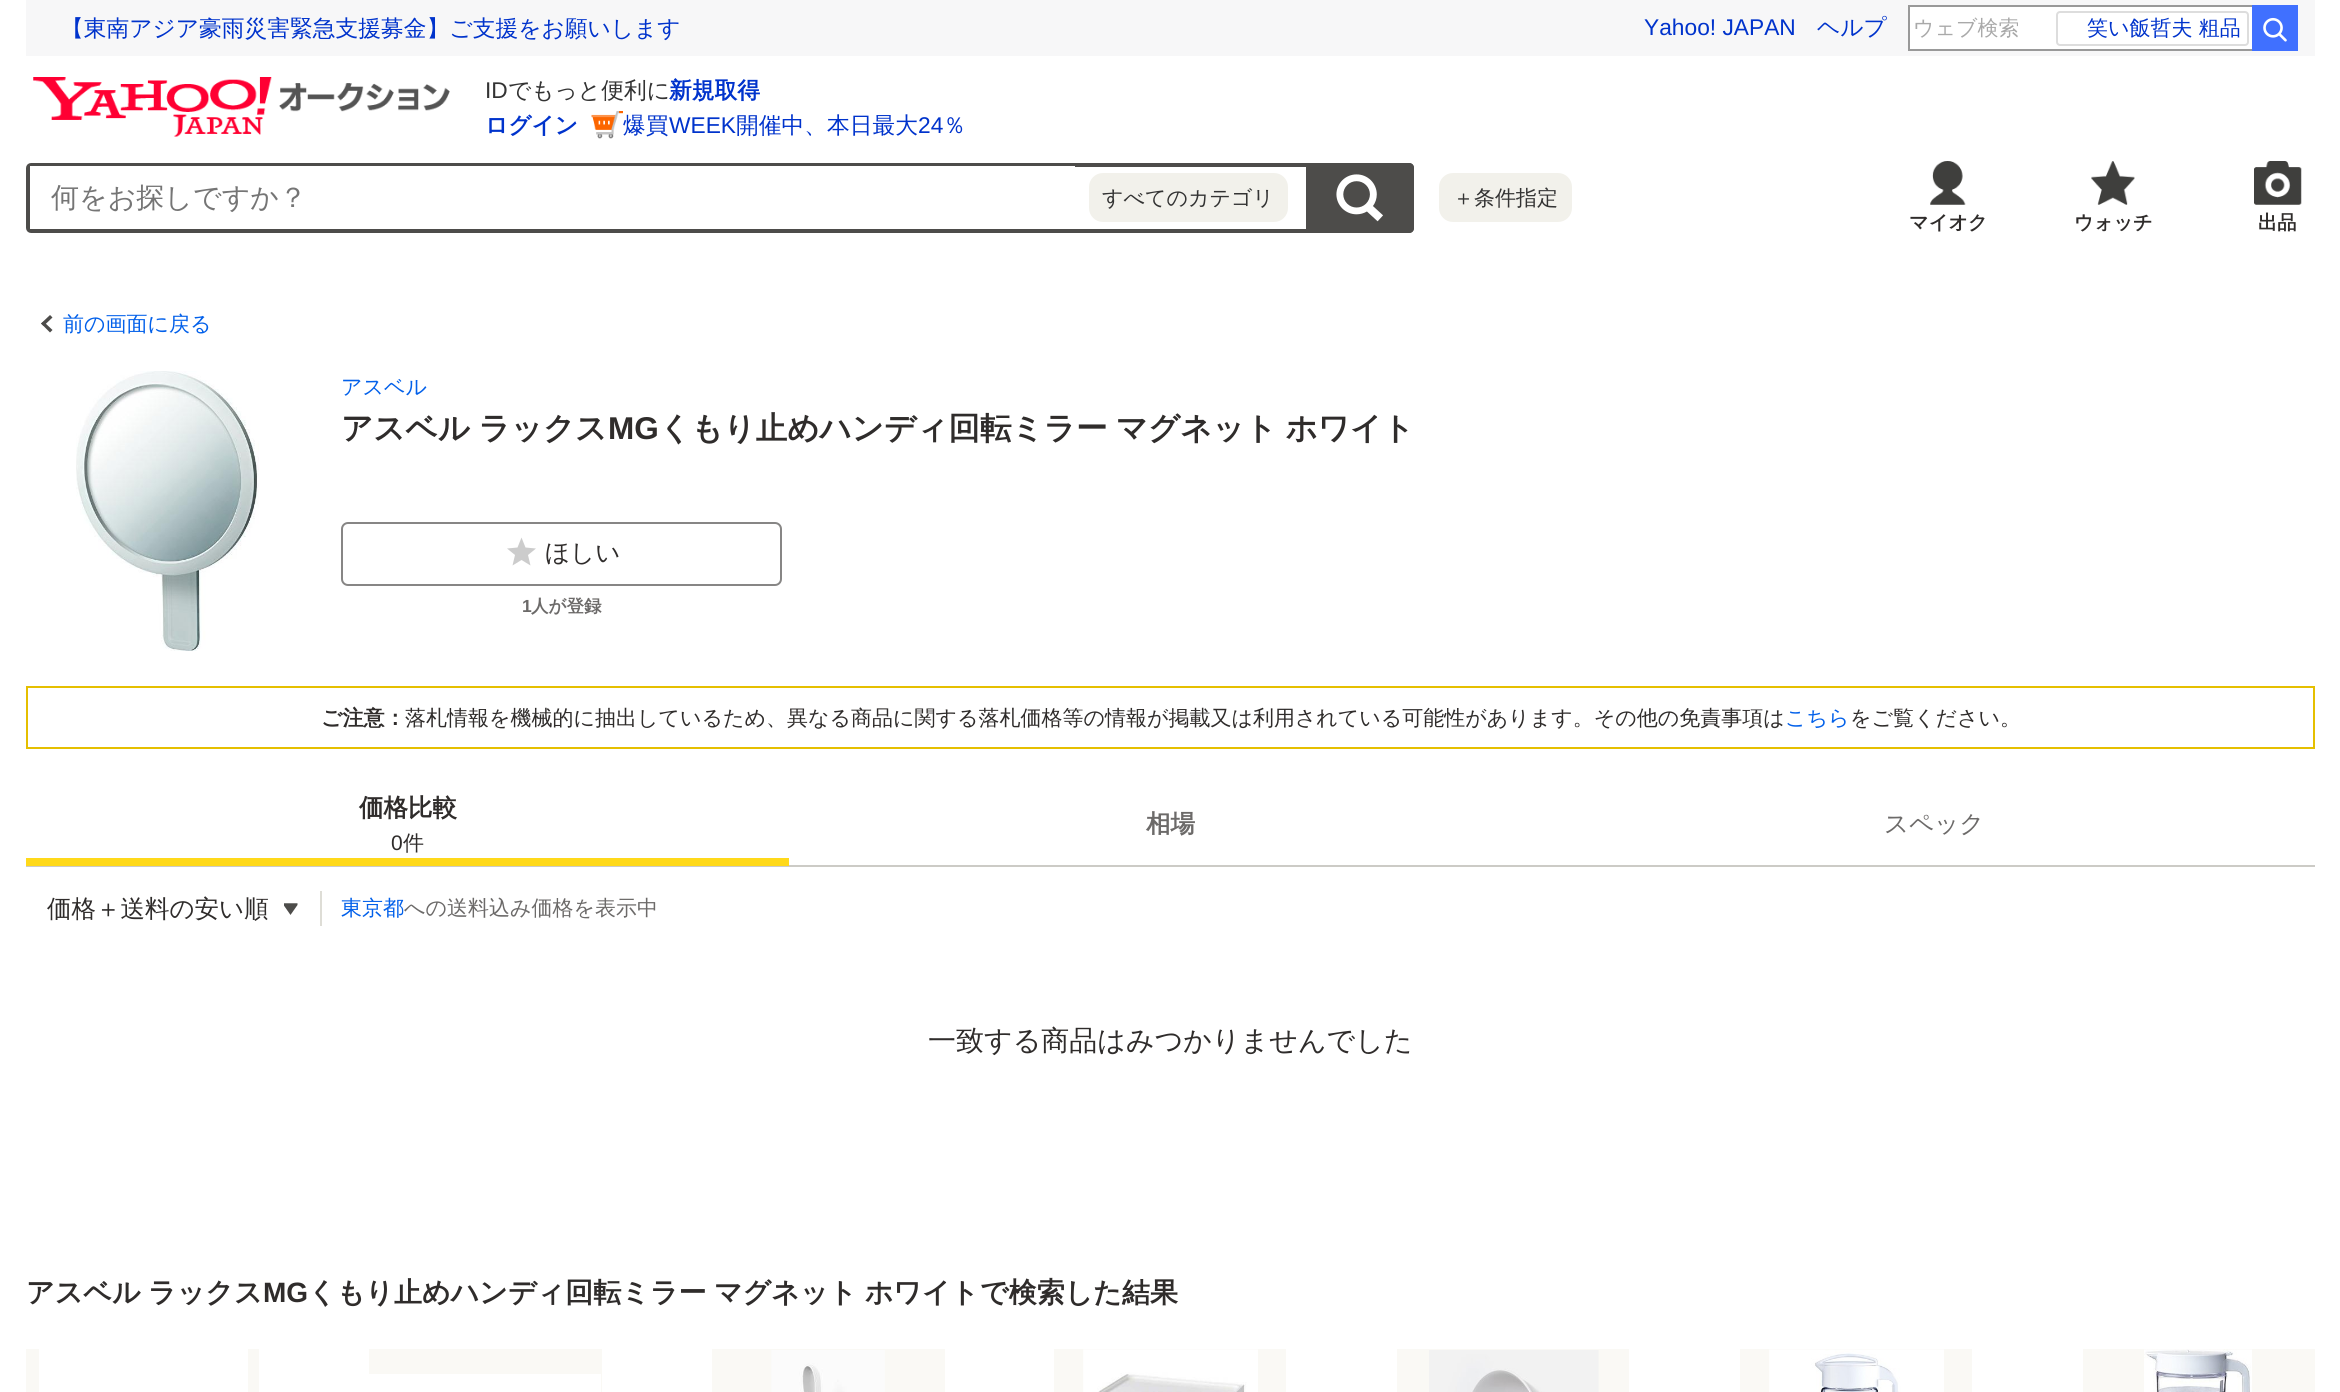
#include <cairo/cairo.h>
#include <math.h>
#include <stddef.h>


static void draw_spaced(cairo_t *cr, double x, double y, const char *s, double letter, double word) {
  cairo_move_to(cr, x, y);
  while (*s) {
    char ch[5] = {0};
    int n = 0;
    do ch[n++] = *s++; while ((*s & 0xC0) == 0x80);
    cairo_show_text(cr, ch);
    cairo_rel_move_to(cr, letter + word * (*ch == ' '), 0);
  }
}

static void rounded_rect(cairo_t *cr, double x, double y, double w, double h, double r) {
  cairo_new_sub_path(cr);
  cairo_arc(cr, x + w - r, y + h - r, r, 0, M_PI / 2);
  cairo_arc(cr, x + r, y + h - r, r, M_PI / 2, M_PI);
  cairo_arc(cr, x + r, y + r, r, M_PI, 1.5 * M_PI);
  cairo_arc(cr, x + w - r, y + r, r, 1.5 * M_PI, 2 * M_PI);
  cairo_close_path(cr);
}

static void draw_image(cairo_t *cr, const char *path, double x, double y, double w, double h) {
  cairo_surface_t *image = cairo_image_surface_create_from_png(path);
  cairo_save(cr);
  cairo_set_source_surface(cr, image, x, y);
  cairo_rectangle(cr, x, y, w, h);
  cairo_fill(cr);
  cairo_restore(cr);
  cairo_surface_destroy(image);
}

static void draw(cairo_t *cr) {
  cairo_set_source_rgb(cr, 1, 1, 1);
  cairo_paint(cr);
  cairo_set_source_rgb(cr, 247 / 255.0, 247 / 255.0, 248 / 255.0);
  cairo_rectangle(cr, 26, 0, 2289, 56);
  cairo_fill(cr);
  cairo_set_source_rgb(cr, 1, 1, 1);
  cairo_rectangle(cr, 1910, 7, 342, 42);
  cairo_fill(cr);
  cairo_set_source_rgb(cr, 153 / 255.0, 153 / 255.0, 153 / 255.0);
  cairo_rectangle(cr, 1908, 5, 344, 2);
  cairo_fill(cr);
  cairo_rectangle(cr, 1908, 49, 344, 2);
  cairo_fill(cr);
  cairo_rectangle(cr, 1908, 5, 2, 46);
  cairo_fill(cr);
  rounded_rect(cr, 2057, 12, 191, 33, 3);
  cairo_set_source_rgb(cr, 221 / 255.0, 221 / 255.0, 221 / 255.0);
  cairo_stroke(cr);
  cairo_set_source_rgb(cr, 64 / 255.0, 112 / 255.0, 1);
  cairo_rectangle(cr, 2252, 5, 46, 46);
  cairo_fill(cr);
  draw_image(cr, "images/1.png", 2263, 17, 24, 25);
  draw_image(cr, "images/2.png", 33, 77, 417, 60);
  draw_image(cr, "images/3.png", 591, 111, 32, 28);
  rounded_rect(cr, 28, 165, 1384, 66, 3);
  cairo_set_source_rgb(cr, 77 / 255.0, 76 / 255.0, 74 / 255.0);
  cairo_set_line_width(cr, 4);
  cairo_stroke(cr);
  cairo_set_source_rgb(cr, 1, 1, 1);
  cairo_rectangle(cr, 30, 166, 1045, 63);
  cairo_fill(cr);
  cairo_set_source_rgb(cr, 242 / 255.0, 241 / 255.0, 235 / 255.0);
  rounded_rect(cr, 1089, 173, 199, 49, 14);
  cairo_fill(cr);
  cairo_set_source_rgb(cr, 77 / 255.0, 76 / 255.0, 74 / 255.0);
  cairo_new_path(cr);
  cairo_move_to(cr, 1306, 163);
  cairo_line_to(cr, 1409, 163);
  cairo_curve_to(cr, 1412, 163, 1414, 165, 1414, 168);
  cairo_line_to(cr, 1414, 228);
  cairo_curve_to(cr, 1414, 231, 1412, 233, 1409, 233);
  cairo_line_to(cr, 1306, 233);
  cairo_close_path(cr);
  cairo_fill(cr);
  draw_image(cr, "images/4.png", 1336, 174, 47, 48);
  cairo_set_source_rgb(cr, 242 / 255.0, 241 / 255.0, 235 / 255.0);
  rounded_rect(cr, 1439, 173, 133, 49, 14);
  cairo_fill(cr);
  draw_image(cr, "images/5.png", 1930, 161, 36, 44);
  draw_image(cr, "images/6.png", 2091, 161, 44, 44);
  draw_image(cr, "images/7.png", 2254, 161, 48, 44);
  cairo_set_source_rgb(cr, 77 / 255.0, 76 / 255.0, 74 / 255.0);
  cairo_new_path(cr);
  cairo_move_to(cr, 50, 332.5);
  cairo_line_to(cr, 41, 323.5);
  cairo_line_to(cr, 43.5, 321.5);
  cairo_line_to(cr, 52.5, 330);
  cairo_close_path(cr);
  cairo_fill(cr);
  cairo_new_path(cr);
  cairo_move_to(cr, 43.5, 326);
  cairo_line_to(cr, 41, 323.5);
  cairo_line_to(cr, 50, 315);
  cairo_line_to(cr, 52.5, 317.5);
  cairo_close_path(cr);
  cairo_fill(cr);
  draw_image(cr, "images/8.png", 76, 371, 183, 280);
  rounded_rect(cr, 342, 523, 439, 62, 6);
  cairo_set_source_rgb(cr, 135 / 255.0, 134 / 255.0, 133 / 255.0);
  cairo_set_line_width(cr, 2);
  cairo_stroke(cr);
  cairo_set_source_rgb(cr, 204 / 255.0, 204 / 255.0, 204 / 255.0);
  cairo_new_path(cr);
  cairo_move_to(cr, 521.5, 560);
  cairo_line_to(cr, 530.5, 565.5);
  cairo_line_to(cr, 528, 555);
  cairo_line_to(cr, 536, 548.5);
  cairo_line_to(cr, 525.5, 547.5);
  cairo_line_to(cr, 521.5, 537.5);
  cairo_line_to(cr, 517.5, 547.5);
  cairo_line_to(cr, 507, 548.5);
  cairo_line_to(cr, 515, 555);
  cairo_line_to(cr, 512.5, 565.5);
  cairo_close_path(cr);
  cairo_fill(cr);
  cairo_rectangle(cr, 27, 687, 2287, 61);
  cairo_set_source_rgb(cr, 229 / 255.0, 191 / 255.0, 0);
  cairo_stroke(cr);
  cairo_set_source_rgb(cr, 204 / 255.0, 203 / 255.0, 198 / 255.0);
  cairo_rectangle(cr, 26, 865, 2289, 2);
  cairo_fill(cr);
  cairo_set_source_rgb(cr, 1, 217 / 255.0, 26 / 255.0);
  cairo_rectangle(cr, 26, 858, 763, 8);
  cairo_fill(cr);
  draw_image(cr, "images/9.png", 284, 903, 14, 12);
  cairo_set_source_rgb(cr, 222 / 255.0, 221 / 255.0, 214 / 255.0);
  cairo_rectangle(cr, 320, 891, 2, 35);
  cairo_fill(cr);
  cairo_set_source_rgb(cr, 250 / 255.0, 249 / 255.0, 245 / 255.0);
  cairo_rectangle(cr, 26, 1349, 233, 43);
  cairo_fill(cr);
  cairo_set_source_rgb(cr, 1, 1, 1);
  cairo_rectangle(cr, 39, 1349, 209, 43);
  cairo_fill(cr);
  cairo_set_source_rgb(cr, 250 / 255.0, 249 / 255.0, 245 / 255.0);
  cairo_rectangle(cr, 369, 1349, 233, 43);
  cairo_fill(cr);
  cairo_set_source_rgb(cr, 1, 1, 1);
  cairo_rectangle(cr, 369, 1374, 232, 18);
  cairo_fill(cr);
  cairo_set_source_rgb(cr, 250 / 255.0, 249 / 255.0, 245 / 255.0);
  cairo_rectangle(cr, 712, 1349, 233, 43);
  cairo_fill(cr);
  draw_image(cr, "images/10.png", 771, 1350, 114, 42);
  cairo_rectangle(cr, 1054, 1349, 232, 43);
  cairo_fill(cr);
  draw_image(cr, "images/11.png", 1083, 1349, 175, 43);
  cairo_rectangle(cr, 1397, 1349, 232, 43);
  cairo_fill(cr);
  draw_image(cr, "images/12.png", 1429, 1350, 170, 42);
  cairo_rectangle(cr, 1740, 1349, 232, 43);
  cairo_fill(cr);
  draw_image(cr, "images/13.png", 1769, 1349, 175, 43);
  cairo_rectangle(cr, 2083, 1349, 232, 43);
  cairo_fill(cr);
  draw_image(cr, "images/14.png", 2144, 1349, 108, 43);
  cairo_select_font_face(cr, "WenQuanYi Zen Hei Medium", CAIRO_FONT_SLANT_NORMAL, CAIRO_FONT_WEIGHT_NORMAL);
  cairo_set_font_size(cr, 22.75);
  cairo_set_source_rgb(cr, 0, 51 / 255.0, 204 / 255.0);
  cairo_move_to(cr, 61, 36);
  cairo_show_text(cr, "【東南アジア豪雨災害緊急支援募金】ご支援をお願いします");
  cairo_select_font_face(cr, "Liberation Sans", CAIRO_FONT_SLANT_NORMAL, CAIRO_FONT_WEIGHT_NORMAL);
  cairo_move_to(cr, 1644, 35);
  cairo_show_text(cr, "Yahoo! JAPAN");
  cairo_select_font_face(cr, "WenQuanYi Zen Hei Medium", CAIRO_FONT_SLANT_NORMAL, CAIRO_FONT_WEIGHT_NORMAL);
  cairo_move_to(cr, 1817, 35);
  cairo_show_text(cr, "ヘルプ");
  cairo_set_font_size(cr, 21);
  cairo_set_source_rgb(cr, 169 / 255.0, 169 / 255.0, 169 / 255.0);
  cairo_move_to(cr, 1913, 35);
  cairo_show_text(cr, "ウェブ検索");
  cairo_set_source_rgb(cr, 0, 51 / 255.0, 204 / 255.0);
  cairo_move_to(cr, 2087, 35);
  cairo_show_text(cr, "笑い飯哲夫 粗品");
  cairo_select_font_face(cr, "Liberation Sans", CAIRO_FONT_SLANT_NORMAL, CAIRO_FONT_WEIGHT_NORMAL);
  cairo_set_font_size(cr, 22.75);
  cairo_set_source_rgb(cr, 51 / 255.0, 51 / 255.0, 51 / 255.0);
  cairo_move_to(cr, 485, 98);
  cairo_show_text(cr, "ID");
  cairo_select_font_face(cr, "WenQuanYi Zen Hei Medium", CAIRO_FONT_SLANT_NORMAL, CAIRO_FONT_WEIGHT_NORMAL);
  cairo_move_to(cr, 508, 98);
  cairo_show_text(cr, "でもっと便利に");
  cairo_select_font_face(cr, "WenQuanYi Zen Hei", CAIRO_FONT_SLANT_NORMAL, CAIRO_FONT_WEIGHT_BOLD);
  cairo_set_source_rgb(cr, 0, 51 / 255.0, 204 / 255.0);
  cairo_move_to(cr, 669, 98);
  cairo_show_text(cr, "新規取得");
  cairo_move_to(cr, 485, 133);
  cairo_show_text(cr, "ログイン");
  cairo_select_font_face(cr, "WenQuanYi Zen Hei Medium", CAIRO_FONT_SLANT_NORMAL, CAIRO_FONT_WEIGHT_NORMAL);
  cairo_move_to(cr, 623, 133);
  cairo_show_text(cr, "爆買");
  cairo_select_font_face(cr, "Liberation Sans", CAIRO_FONT_SLANT_NORMAL, CAIRO_FONT_WEIGHT_NORMAL);
  cairo_move_to(cr, 669, 133);
  cairo_show_text(cr, "WEEK");
  cairo_select_font_face(cr, "WenQuanYi Zen Hei Medium", CAIRO_FONT_SLANT_NORMAL, CAIRO_FONT_WEIGHT_NORMAL);
  cairo_move_to(cr, 736, 133);
  cairo_show_text(cr, "開催中、本日最大");
  cairo_select_font_face(cr, "Liberation Sans", CAIRO_FONT_SLANT_NORMAL, CAIRO_FONT_WEIGHT_NORMAL);
  cairo_move_to(cr, 918, 133);
  cairo_show_text(cr, "24");
  cairo_select_font_face(cr, "WenQuanYi Zen Hei Medium", CAIRO_FONT_SLANT_NORMAL, CAIRO_FONT_WEIGHT_NORMAL);
  cairo_move_to(cr, 943, 133);
  cairo_show_text(cr, "％");
  cairo_set_font_size(cr, 28);
  cairo_set_source_rgb(cr, 117 / 255.0, 117 / 255.0, 117 / 255.0);
  cairo_move_to(cr, 51, 207);
  cairo_show_text(cr, "何をお探しですか？");
  cairo_set_font_size(cr, 21);
  cairo_set_source_rgb(cr, 51 / 255.0, 51 / 255.0, 51 / 255.0);
  cairo_move_to(cr, 1102, 205);
  cairo_show_text(cr, "すべてのカテゴリ");
  cairo_move_to(cr, 1453, 205);
  cairo_show_text(cr, "＋条件指定");
  cairo_select_font_face(cr, "WenQuanYi Zen Hei", CAIRO_FONT_SLANT_NORMAL, CAIRO_FONT_WEIGHT_BOLD);
  cairo_set_font_size(cr, 19.25);
  cairo_set_source_rgb(cr, 47 / 255.0, 44 / 255.0, 43 / 255.0);
  cairo_move_to(cr, 1909, 229);
  cairo_show_text(cr, "マイオク");
  cairo_move_to(cr, 2074, 229);
  cairo_show_text(cr, "ウォッチ");
  cairo_move_to(cr, 2258, 229);
  cairo_show_text(cr, "出品");
  cairo_select_font_face(cr, "WenQuanYi Zen Hei Medium", CAIRO_FONT_SLANT_NORMAL, CAIRO_FONT_WEIGHT_NORMAL);
  cairo_set_font_size(cr, 21);
  cairo_set_source_rgb(cr, 2 / 255.0, 96 / 255.0, 234 / 255.0);
  cairo_move_to(cr, 63, 331);
  cairo_show_text(cr, "前の画面に戻る");
  cairo_move_to(cr, 341, 394);
  cairo_show_text(cr, "アスベル");
  cairo_select_font_face(cr, "WenQuanYi Zen Hei", CAIRO_FONT_SLANT_NORMAL, CAIRO_FONT_WEIGHT_BOLD);
  cairo_set_font_size(cr, 31.5);
  cairo_set_source_rgb(cr, 47 / 255.0, 44 / 255.0, 43 / 255.0);
  draw_spaced(cr, 341, 439, "アスベル ラックス", 0, -1);
  cairo_select_font_face(cr, "Liberation Sans", CAIRO_FONT_SLANT_NORMAL, CAIRO_FONT_WEIGHT_BOLD);
  cairo_move_to(cr, 608, 439);
  cairo_show_text(cr, "MG");
  cairo_select_font_face(cr, "WenQuanYi Zen Hei", CAIRO_FONT_SLANT_NORMAL, CAIRO_FONT_WEIGHT_BOLD);
  draw_spaced(cr, 659, 439, "くもり止めハンディ回転ミラー マグネット ホワイト", 0, -1);
  cairo_select_font_face(cr, "WenQuanYi Zen Hei Medium", CAIRO_FONT_SLANT_NORMAL, CAIRO_FONT_WEIGHT_NORMAL);
  cairo_set_font_size(cr, 24.5);
  cairo_move_to(cr, 545, 561);
  cairo_show_text(cr, "ほしい");
  cairo_select_font_face(cr, "Liberation Sans", CAIRO_FONT_SLANT_NORMAL, CAIRO_FONT_WEIGHT_BOLD);
  cairo_set_font_size(cr, 17.5);
  cairo_set_source_rgb(cr, 108 / 255.0, 106 / 255.0, 105 / 255.0);
  cairo_move_to(cr, 522, 612);
  cairo_show_text(cr, "1");
  cairo_select_font_face(cr, "WenQuanYi Zen Hei", CAIRO_FONT_SLANT_NORMAL, CAIRO_FONT_WEIGHT_BOLD);
  cairo_move_to(cr, 531, 612);
  cairo_show_text(cr, "人が登録");
  cairo_set_font_size(cr, 21);
  cairo_set_source_rgb(cr, 47 / 255.0, 44 / 255.0, 43 / 255.0);
  cairo_move_to(cr, 321, 725);
  cairo_show_text(cr, "ご注意：");
  cairo_select_font_face(cr, "WenQuanYi Zen Hei Medium", CAIRO_FONT_SLANT_NORMAL, CAIRO_FONT_WEIGHT_NORMAL);
  cairo_move_to(cr, 405, 725);
  cairo_show_text(cr, "落札情報を機械的に抽出しているため、異なる商品に関する落札価格等の情報が掲載又は利用されている可能性があります。その他の免責事項は");
  cairo_set_source_rgb(cr, 2 / 255.0, 96 / 255.0, 234 / 255.0);
  cairo_move_to(cr, 1785, 725);
  cairo_show_text(cr, "こちら");
  cairo_set_source_rgb(cr, 47 / 255.0, 44 / 255.0, 43 / 255.0);
  cairo_move_to(cr, 1850, 725);
  cairo_show_text(cr, "をご覧ください。");
  cairo_select_font_face(cr, "WenQuanYi Zen Hei", CAIRO_FONT_SLANT_NORMAL, CAIRO_FONT_WEIGHT_BOLD);
  cairo_set_font_size(cr, 24.5);
  cairo_move_to(cr, 359, 816);
  cairo_show_text(cr, "価格比較");
  cairo_select_font_face(cr, "Liberation Sans", CAIRO_FONT_SLANT_NORMAL, CAIRO_FONT_WEIGHT_NORMAL);
  cairo_set_font_size(cr, 21);
  cairo_move_to(cr, 391, 850);
  cairo_show_text(cr, "0");
  cairo_select_font_face(cr, "WenQuanYi Zen Hei Medium", CAIRO_FONT_SLANT_NORMAL, CAIRO_FONT_WEIGHT_NORMAL);
  cairo_move_to(cr, 403, 850);
  cairo_show_text(cr, "件");
  cairo_select_font_face(cr, "WenQuanYi Zen Hei", CAIRO_FONT_SLANT_NORMAL, CAIRO_FONT_WEIGHT_BOLD);
  cairo_set_font_size(cr, 24.5);
  cairo_set_source_rgb(cr, 108 / 255.0, 106 / 255.0, 105 / 255.0);
  cairo_move_to(cr, 1146, 832);
  cairo_show_text(cr, "相場");
  cairo_select_font_face(cr, "WenQuanYi Zen Hei Medium", CAIRO_FONT_SLANT_NORMAL, CAIRO_FONT_WEIGHT_NORMAL);
  cairo_move_to(cr, 1884, 832);
  cairo_show_text(cr, "スペック");
  cairo_set_source_rgb(cr, 47 / 255.0, 44 / 255.0, 43 / 255.0);
  cairo_move_to(cr, 47, 917);
  cairo_show_text(cr, "価格＋送料の安い順");
  cairo_set_font_size(cr, 21);
  cairo_set_source_rgb(cr, 2 / 255.0, 96 / 255.0, 234 / 255.0);
  cairo_move_to(cr, 341, 915);
  cairo_show_text(cr, "東京都");
  cairo_set_source_rgb(cr, 108 / 255.0, 106 / 255.0, 105 / 255.0);
  cairo_move_to(cr, 404, 915);
  cairo_show_text(cr, "への送料込み価格を表示中");
  cairo_set_font_size(cr, 28);
  cairo_set_source_rgb(cr, 47 / 255.0, 44 / 255.0, 43 / 255.0);
  cairo_move_to(cr, 928, 1050);
  cairo_show_text(cr, "一致する商品はみつかりませんでした");
  cairo_select_font_face(cr, "WenQuanYi Zen Hei", CAIRO_FONT_SLANT_NORMAL, CAIRO_FONT_WEIGHT_BOLD);
  draw_spaced(cr, 26, 1302, "アスベル ラックス", 0, -1);
  cairo_select_font_face(cr, "Liberation Sans", CAIRO_FONT_SLANT_NORMAL, CAIRO_FONT_WEIGHT_BOLD);
  cairo_move_to(cr, 263, 1302);
  cairo_show_text(cr, "MG");
  cairo_select_font_face(cr, "WenQuanYi Zen Hei", CAIRO_FONT_SLANT_NORMAL, CAIRO_FONT_WEIGHT_BOLD);
  draw_spaced(cr, 308, 1302, "くもり止めハンディ回転ミラー マグネット ホワイト", 0, -1);
  cairo_move_to(cr, 980, 1302);
  cairo_show_text(cr, "で検索した結果");
}

int main(void) {
  cairo_surface_t *surface = cairo_image_surface_create(CAIRO_FORMAT_RGB24, 2340, 1392);
  cairo_t *cr = cairo_create(surface);
  cairo_font_options_t *options = cairo_font_options_create();
  cairo_font_options_set_hint_metrics(options, CAIRO_HINT_METRICS_OFF);
  cairo_font_options_set_hint_style(options, CAIRO_HINT_STYLE_NONE);
  cairo_set_font_options(cr, options);
  cairo_set_miter_limit(cr, 4);
  draw(cr);
  cairo_surface_write_to_png(surface, "out.png");
  cairo_font_options_destroy(options);
  cairo_destroy(cr);
  cairo_surface_destroy(surface);
  return 0;
}
